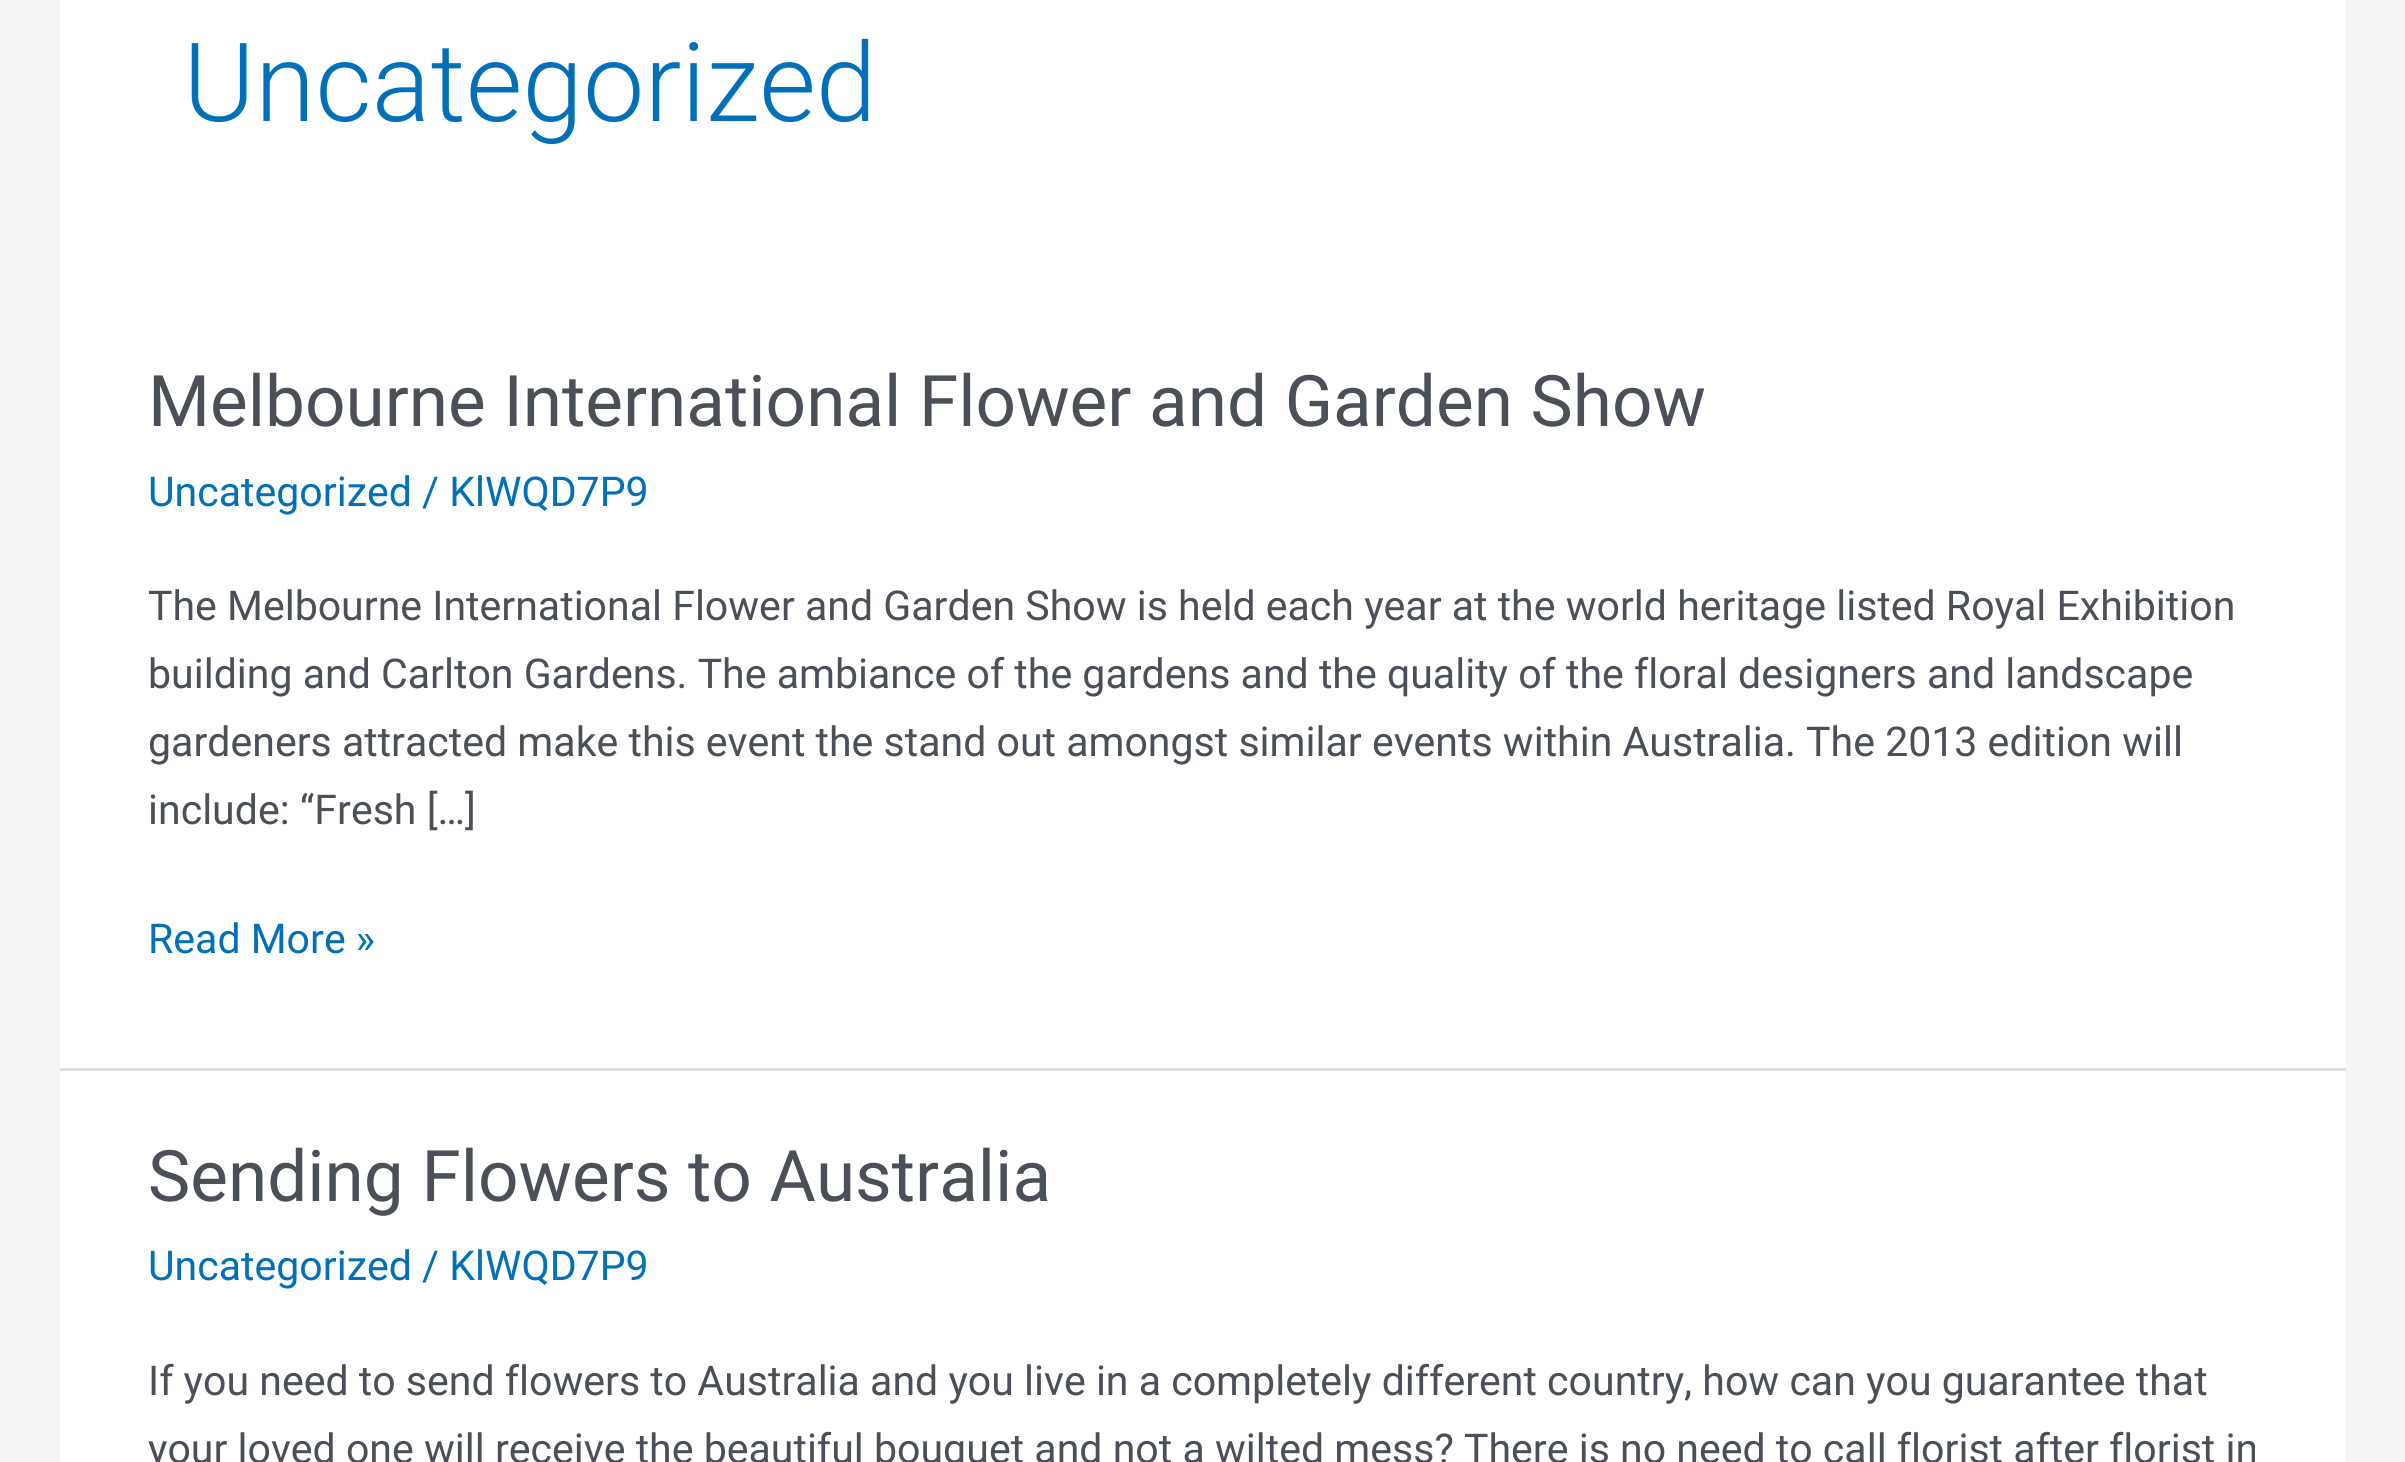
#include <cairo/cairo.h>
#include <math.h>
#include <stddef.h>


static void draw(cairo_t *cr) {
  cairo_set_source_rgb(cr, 245 / 255.0, 245 / 255.0, 245 / 255.0);
  cairo_paint(cr);
  cairo_set_source_rgb(cr, 1, 1, 1);
  cairo_rectangle(cr, 60, 0, 2286, 1068);
  cairo_fill(cr);
  cairo_set_source_rgb(cr, 221 / 255.0, 221 / 255.0, 221 / 255.0);
  cairo_rectangle(cr, 60, 1068, 2286, 3);
  cairo_fill(cr);
  cairo_set_source_rgb(cr, 1, 1, 1);
  cairo_rectangle(cr, 60, 1071, 2286, 391);
  cairo_fill(cr);
  cairo_select_font_face(cr, "Roboto Light", CAIRO_FONT_SLANT_NORMAL, CAIRO_FONT_WEIGHT_NORMAL);
  cairo_set_font_size(cr, 109.5);
  cairo_set_source_rgb(cr, 1 / 255.0, 112 / 255.0, 185 / 255.0);
  cairo_move_to(cr, 183, 121);
  cairo_show_text(cr, "Uncategorized");
  cairo_select_font_face(cr, "Roboto", CAIRO_FONT_SLANT_NORMAL, CAIRO_FONT_WEIGHT_NORMAL);
  cairo_set_font_size(cr, 71.1);
  cairo_set_source_rgb(cr, 75 / 255.0, 79 / 255.0, 88 / 255.0);
  cairo_move_to(cr, 148, 426);
  cairo_show_text(cr, "Melbourne International Flower and Garden Show");
  cairo_set_font_size(cr, 41.05);
  cairo_set_source_rgb(cr, 1 / 255.0, 112 / 255.0, 185 / 255.0);
  cairo_move_to(cr, 148, 506);
  cairo_show_text(cr, "Uncategorized / KlWQD7P9");
  cairo_set_source_rgb(cr, 75 / 255.0, 79 / 255.0, 88 / 255.0);
  cairo_move_to(cr, 148, 620);
  cairo_show_text(cr, "The Melbourne International Flower and Garden Show is held each year at the world heritage listed Royal Exhibition");
  cairo_move_to(cr, 148, 688);
  cairo_show_text(cr, "building and Carlton Gardens. The ambiance of the gardens and the quality of the floral designers and landscape");
  cairo_move_to(cr, 148, 756);
  cairo_show_text(cr, "gardeners attracted make this event the stand out amongst similar events within Australia. The 2013 edition will");
  cairo_move_to(cr, 148, 824);
  cairo_show_text(cr, "include: “Fresh […]");
  cairo_set_source_rgb(cr, 1 / 255.0, 112 / 255.0, 185 / 255.0);
  cairo_move_to(cr, 148, 953);
  cairo_show_text(cr, "Read More »");
  cairo_set_font_size(cr, 71.1);
  cairo_set_source_rgb(cr, 75 / 255.0, 79 / 255.0, 88 / 255.0);
  cairo_move_to(cr, 148, 1201);
  cairo_show_text(cr, "Sending Flowers to Australia");
  cairo_set_font_size(cr, 41.05);
  cairo_set_source_rgb(cr, 1 / 255.0, 112 / 255.0, 185 / 255.0);
  cairo_move_to(cr, 148, 1280);
  cairo_show_text(cr, "Uncategorized / KlWQD7P9");
  cairo_set_source_rgb(cr, 75 / 255.0, 79 / 255.0, 88 / 255.0);
  cairo_move_to(cr, 148, 1395);
  cairo_show_text(cr, "If you need to send flowers to Australia and you live in a completely different country, how can you guarantee that");
  cairo_move_to(cr, 148, 1463);
  cairo_show_text(cr, "your loved one will receive the beautiful bouquet and not a wilted mess? There is no need to call florist after florist in");
}

int main(void) {
  cairo_surface_t *surface = cairo_image_surface_create(CAIRO_FORMAT_RGB24, 2405, 1462);
  cairo_t *cr = cairo_create(surface);
  cairo_font_options_t *options = cairo_font_options_create();
  cairo_font_options_set_hint_metrics(options, CAIRO_HINT_METRICS_OFF);
  cairo_font_options_set_hint_style(options, CAIRO_HINT_STYLE_NONE);
  cairo_set_font_options(cr, options);
  cairo_set_miter_limit(cr, 4);
  draw(cr);
  cairo_surface_write_to_png(surface, "out.png");
  cairo_font_options_destroy(options);
  cairo_destroy(cr);
  cairo_surface_destroy(surface);
  return 0;
}
